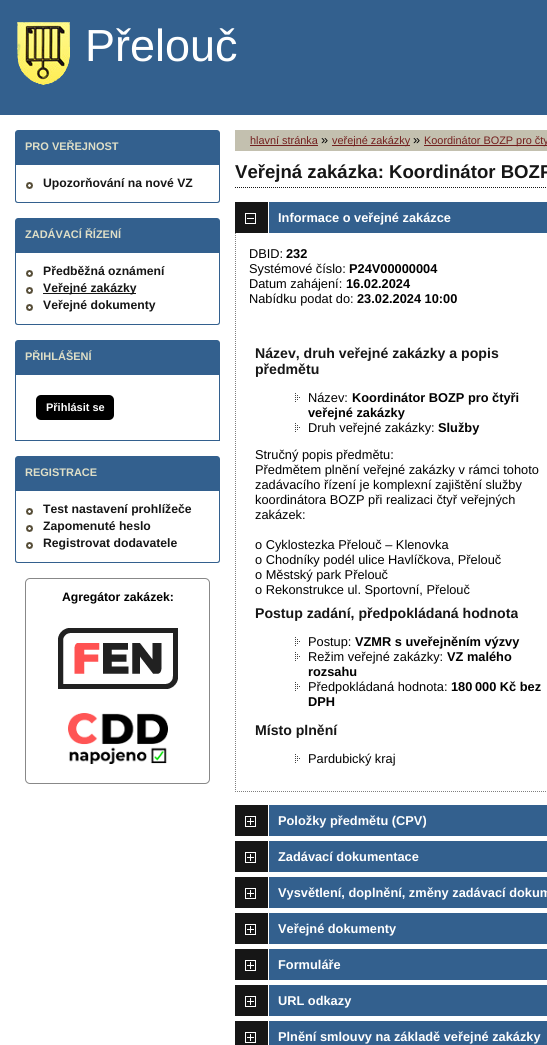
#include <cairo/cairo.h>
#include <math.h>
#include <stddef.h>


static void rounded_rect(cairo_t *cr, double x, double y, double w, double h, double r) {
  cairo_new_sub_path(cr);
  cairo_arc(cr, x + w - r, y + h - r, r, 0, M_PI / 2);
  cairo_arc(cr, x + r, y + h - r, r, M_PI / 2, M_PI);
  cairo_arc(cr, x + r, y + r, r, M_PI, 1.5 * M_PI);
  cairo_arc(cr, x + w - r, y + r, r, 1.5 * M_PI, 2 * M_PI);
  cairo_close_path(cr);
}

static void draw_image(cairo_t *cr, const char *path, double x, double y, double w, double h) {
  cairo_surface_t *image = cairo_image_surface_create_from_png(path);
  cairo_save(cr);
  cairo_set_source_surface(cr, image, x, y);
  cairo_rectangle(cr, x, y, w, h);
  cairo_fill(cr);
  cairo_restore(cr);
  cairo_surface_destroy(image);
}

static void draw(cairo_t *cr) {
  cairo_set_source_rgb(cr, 1, 1, 1);
  cairo_paint(cr);
  cairo_set_source_rgb(cr, 51 / 255.0, 96 / 255.0, 142 / 255.0);
  cairo_rectangle(cr, 0, 0, 547, 115);
  cairo_fill(cr);
  draw_image(cr, "images/1.png", 15, 22, 56, 63);
  cairo_new_path(cr);
  cairo_move_to(cr, 18, 130);
  cairo_line_to(cr, 217, 130);
  cairo_curve_to(cr, 218.5, 130, 220, 131.5, 220, 133);
  cairo_line_to(cr, 220, 165);
  cairo_line_to(cr, 15, 165);
  cairo_line_to(cr, 15, 133);
  cairo_curve_to(cr, 15, 131.5, 16.5, 130, 18, 130);
  cairo_close_path(cr);
  cairo_fill(cr);
  cairo_set_fill_rule(cr, CAIRO_FILL_RULE_EVEN_ODD);
  cairo_new_path(cr);
  cairo_move_to(cr, 15, 165);
  cairo_line_to(cr, 220, 165);
  cairo_line_to(cr, 220, 200);
  cairo_curve_to(cr, 220, 202, 219, 203, 217, 203);
  cairo_line_to(cr, 18, 203);
  cairo_curve_to(cr, 16, 203, 15, 202, 15, 200);
  cairo_close_path(cr);
  cairo_move_to(cr, 16, 165);
  cairo_line_to(cr, 219, 165);
  cairo_line_to(cr, 219, 200);
  cairo_curve_to(cr, 219, 201, 218, 202, 217, 202);
  cairo_line_to(cr, 18, 202);
  cairo_curve_to(cr, 17, 202, 16, 201, 16, 200);
  cairo_close_path(cr);
  cairo_fill(cr);
  draw_image(cr, "images/2.png", 26, 182, 7, 7);
  cairo_new_path(cr);
  cairo_move_to(cr, 18, 218);
  cairo_line_to(cr, 217, 218);
  cairo_curve_to(cr, 218.5, 218, 220, 219.5, 220, 221);
  cairo_line_to(cr, 220, 253);
  cairo_line_to(cr, 15, 253);
  cairo_line_to(cr, 15, 221);
  cairo_curve_to(cr, 15, 219.5, 16.5, 218, 18, 218);
  cairo_close_path(cr);
  cairo_fill(cr);
  cairo_new_path(cr);
  cairo_move_to(cr, 15, 253);
  cairo_line_to(cr, 220, 253);
  cairo_line_to(cr, 220, 322);
  cairo_curve_to(cr, 220, 324, 219, 325, 217, 325);
  cairo_line_to(cr, 18, 325);
  cairo_curve_to(cr, 16, 325, 15, 324, 15, 322);
  cairo_close_path(cr);
  cairo_move_to(cr, 16, 253);
  cairo_line_to(cr, 219, 253);
  cairo_line_to(cr, 219, 322);
  cairo_curve_to(cr, 219, 323, 218, 324, 217, 324);
  cairo_line_to(cr, 18, 324);
  cairo_curve_to(cr, 17, 324, 16, 323, 16, 322);
  cairo_close_path(cr);
  cairo_fill(cr);
  draw_image(cr, "images/2.png", 26, 270, 7, 7);
  draw_image(cr, "images/2.png", 26, 287, 7, 7);
  cairo_set_source_rgb(cr, 22 / 255.0, 22 / 255.0, 22 / 255.0);
  cairo_rectangle(cr, 43, 293, 93, 1);
  cairo_fill(cr);
  draw_image(cr, "images/2.png", 26, 304, 7, 7);
  cairo_set_source_rgb(cr, 51 / 255.0, 96 / 255.0, 142 / 255.0);
  cairo_new_path(cr);
  cairo_move_to(cr, 18, 340);
  cairo_line_to(cr, 217, 340);
  cairo_curve_to(cr, 218.5, 340, 220, 341.5, 220, 343);
  cairo_line_to(cr, 220, 375);
  cairo_line_to(cr, 15, 375);
  cairo_line_to(cr, 15, 343);
  cairo_curve_to(cr, 15, 341.5, 16.5, 340, 18, 340);
  cairo_close_path(cr);
  cairo_fill(cr);
  cairo_rectangle(cr, 219, 375, 1, 66);
  cairo_fill(cr);
  cairo_rectangle(cr, 15, 440, 205, 1);
  cairo_fill(cr);
  cairo_rectangle(cr, 15, 375, 1, 66);
  cairo_fill(cr);
  cairo_set_source_rgb(cr, 0, 0, 0);
  rounded_rect(cr, 36, 395, 78, 25, 5);
  cairo_fill(cr);
  cairo_set_source_rgb(cr, 51 / 255.0, 96 / 255.0, 142 / 255.0);
  cairo_new_path(cr);
  cairo_move_to(cr, 18, 456);
  cairo_line_to(cr, 217, 456);
  cairo_curve_to(cr, 218.5, 456, 220, 457.5, 220, 459);
  cairo_line_to(cr, 220, 491);
  cairo_line_to(cr, 15, 491);
  cairo_line_to(cr, 15, 459);
  cairo_curve_to(cr, 15, 457.5, 16.5, 456, 18, 456);
  cairo_close_path(cr);
  cairo_fill(cr);
  cairo_new_path(cr);
  cairo_move_to(cr, 15, 491);
  cairo_line_to(cr, 220, 491);
  cairo_line_to(cr, 220, 560);
  cairo_curve_to(cr, 220, 562, 219, 563, 217, 563);
  cairo_line_to(cr, 18, 563);
  cairo_curve_to(cr, 16, 563, 15, 562, 15, 560);
  cairo_close_path(cr);
  cairo_move_to(cr, 16, 491);
  cairo_line_to(cr, 219, 491);
  cairo_line_to(cr, 219, 560);
  cairo_curve_to(cr, 219, 561, 218, 562, 217, 562);
  cairo_line_to(cr, 18, 562);
  cairo_curve_to(cr, 17, 562, 16, 561, 16, 560);
  cairo_close_path(cr);
  cairo_fill(cr);
  draw_image(cr, "images/2.png", 26, 508, 7, 7);
  draw_image(cr, "images/2.png", 26, 525, 7, 7);
  draw_image(cr, "images/2.png", 26, 542, 7, 7);
  rounded_rect(cr, 25.5, 578.5, 184, 205, 4.5);
  cairo_set_source_rgb(cr, 136 / 255.0, 136 / 255.0, 136 / 255.0);
  cairo_set_line_width(cr, 1);
  cairo_stroke(cr);
  draw_image(cr, "images/3.png", 58, 628, 120, 61);
  draw_image(cr, "images/4.png", 68, 713, 100, 51);
  cairo_set_source_rgb(cr, 195 / 255.0, 192 / 255.0, 175 / 255.0);
  cairo_rectangle(cr, 235, 130, 312, 21);
  cairo_fill(cr);
  cairo_set_source_rgb(cr, 115 / 255.0, 31 / 255.0, 30 / 255.0);
  cairo_rectangle(cr, 250, 145, 68, 1);
  cairo_fill(cr);
  cairo_rectangle(cr, 332, 145, 78, 1);
  cairo_fill(cr);
  cairo_rectangle(cr, 424, 145, 123, 1);
  cairo_fill(cr);
  cairo_new_path(cr);
  cairo_move_to(cr, 235, 187.5);
  cairo_line_to(cr, 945, 187.5);
  cairo_set_source_rgb(cr, 22 / 255.0, 22 / 255.0, 22 / 255.0);
  cairo_set_dash(cr, (double[]){1, 1}, 2, 0);
  cairo_stroke(cr);
  draw_image(cr, "images/5.png", 235, 202, 312, 31);
  draw_image(cr, "images/6.png", 245, 213, 11, 11);
  cairo_new_path(cr);
  cairo_move_to(cr, 235, 791.5);
  cairo_line_to(cr, 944, 791.5);
  cairo_set_source_rgb(cr, 127 / 255.0, 127 / 255.0, 127 / 255.0);
  cairo_stroke(cr);
  cairo_new_path(cr);
  cairo_move_to(cr, 235.5, 233);
  cairo_line_to(cr, 235.5, 792);
  cairo_stroke(cr);
  draw_image(cr, "images/7.png", 295, 393, 5, 9);
  draw_image(cr, "images/7.png", 295, 423, 5, 9);
  draw_image(cr, "images/7.png", 295, 637, 5, 9);
  draw_image(cr, "images/7.png", 295, 652, 5, 9);
  draw_image(cr, "images/7.png", 295, 682, 5, 9);
  draw_image(cr, "images/7.png", 295, 754, 5, 9);
  draw_image(cr, "images/5.png", 235, 805, 312, 31);
  draw_image(cr, "images/8.png", 245, 816, 11, 11);
  draw_image(cr, "images/5.png", 235, 841, 312, 31);
  draw_image(cr, "images/8.png", 245, 852, 11, 11);
  draw_image(cr, "images/5.png", 235, 877, 312, 31);
  draw_image(cr, "images/8.png", 245, 888, 11, 11);
  draw_image(cr, "images/5.png", 235, 913, 312, 31);
  draw_image(cr, "images/8.png", 245, 924, 11, 11);
  draw_image(cr, "images/5.png", 235, 949, 312, 31);
  draw_image(cr, "images/8.png", 245, 960, 11, 11);
  draw_image(cr, "images/5.png", 235, 985, 312, 31);
  draw_image(cr, "images/8.png", 245, 996, 11, 11);
  draw_image(cr, "images/9.png", 235, 1021, 312, 24);
  draw_image(cr, "images/8.png", 245, 1032, 11, 11);
  cairo_select_font_face(cr, "Liberation Sans", CAIRO_FONT_SLANT_NORMAL, CAIRO_FONT_WEIGHT_NORMAL);
  cairo_set_font_size(cr, 45);
  cairo_set_source_rgb(cr, 1, 1, 1);
  cairo_move_to(cr, 85, 61);
  cairo_show_text(cr, "Přelouč");
  cairo_select_font_face(cr, "Liberation Sans", CAIRO_FONT_SLANT_NORMAL, CAIRO_FONT_WEIGHT_BOLD);
  cairo_set_font_size(cr, 11);
  cairo_set_source_rgb(cr, 223 / 255.0, 223 / 255.0, 199 / 255.0);
  cairo_move_to(cr, 25, 150);
  cairo_show_text(cr, "PRO VEŘEJNOST");
  cairo_set_font_size(cr, 12.2);
  cairo_set_source_rgb(cr, 22 / 255.0, 22 / 255.0, 22 / 255.0);
  cairo_move_to(cr, 43, 187);
  cairo_show_text(cr, "Upozorňování na nové VZ");
  cairo_set_font_size(cr, 11);
  cairo_set_source_rgb(cr, 223 / 255.0, 223 / 255.0, 199 / 255.0);
  cairo_move_to(cr, 25, 238);
  cairo_show_text(cr, "ZADÁVACÍ ŘÍZENÍ");
  cairo_set_font_size(cr, 12.2);
  cairo_set_source_rgb(cr, 22 / 255.0, 22 / 255.0, 22 / 255.0);
  cairo_move_to(cr, 43, 275);
  cairo_show_text(cr, "Předběžná oznámení");
  cairo_move_to(cr, 43, 292);
  cairo_show_text(cr, "Veřejné zakázky");
  cairo_move_to(cr, 43, 309);
  cairo_show_text(cr, "Veřejné dokumenty");
  cairo_set_font_size(cr, 11);
  cairo_set_source_rgb(cr, 223 / 255.0, 223 / 255.0, 199 / 255.0);
  cairo_move_to(cr, 25, 360);
  cairo_show_text(cr, "PŘIHLÁŠENÍ");
  cairo_set_source_rgb(cr, 1, 1, 1);
  cairo_move_to(cr, 46, 411);
  cairo_show_text(cr, "Přihlásit se");
  cairo_set_source_rgb(cr, 223 / 255.0, 223 / 255.0, 199 / 255.0);
  cairo_move_to(cr, 25, 476);
  cairo_show_text(cr, "REGISTRACE");
  cairo_set_font_size(cr, 12.2);
  cairo_set_source_rgb(cr, 22 / 255.0, 22 / 255.0, 22 / 255.0);
  cairo_move_to(cr, 43, 513);
  cairo_show_text(cr, "Test nastavení prohlížeče");
  cairo_move_to(cr, 43, 530);
  cairo_show_text(cr, "Zapomenuté heslo");
  cairo_move_to(cr, 43, 547);
  cairo_show_text(cr, "Registrovat dodavatele");
  cairo_set_source_rgb(cr, 0, 0, 0);
  cairo_move_to(cr, 62, 601);
  cairo_show_text(cr, "Agregátor zakázek:");
  cairo_select_font_face(cr, "Liberation Sans", CAIRO_FONT_SLANT_NORMAL, CAIRO_FONT_WEIGHT_NORMAL);
  cairo_set_font_size(cr, 10.9);
  cairo_set_source_rgb(cr, 115 / 255.0, 31 / 255.0, 30 / 255.0);
  cairo_move_to(cr, 250, 144);
  cairo_show_text(cr, "hlavní stránka");
  cairo_set_font_size(cr, 12.8);
  cairo_set_source_rgb(cr, 0, 0, 0);
  cairo_move_to(cr, 321, 144);
  cairo_show_text(cr, "»");
  cairo_set_font_size(cr, 10.9);
  cairo_set_source_rgb(cr, 115 / 255.0, 31 / 255.0, 30 / 255.0);
  cairo_move_to(cr, 332, 144);
  cairo_show_text(cr, "veřejné zakázky");
  cairo_set_font_size(cr, 12.8);
  cairo_set_source_rgb(cr, 0, 0, 0);
  cairo_move_to(cr, 413, 144);
  cairo_show_text(cr, "»");
  cairo_set_font_size(cr, 10.9);
  cairo_set_source_rgb(cr, 115 / 255.0, 31 / 255.0, 30 / 255.0);
  cairo_move_to(cr, 424, 144);
  cairo_show_text(cr, "Koordinátor BOZP pro čty");
  cairo_select_font_face(cr, "Liberation Sans", CAIRO_FONT_SLANT_NORMAL, CAIRO_FONT_WEIGHT_BOLD);
  cairo_set_font_size(cr, 18.6);
  cairo_set_source_rgb(cr, 22 / 255.0, 22 / 255.0, 22 / 255.0);
  cairo_move_to(cr, 235, 178);
  cairo_show_text(cr, "Veřejná zakázka: Koordinátor BOZP");
  cairo_set_font_size(cr, 12.8);
  cairo_set_source_rgb(cr, 1, 1, 1);
  cairo_move_to(cr, 278, 222);
  cairo_show_text(cr, "Informace o veřejné zakázce");
  cairo_select_font_face(cr, "Liberation Sans", CAIRO_FONT_SLANT_NORMAL, CAIRO_FONT_WEIGHT_NORMAL);
  cairo_set_source_rgb(cr, 0, 0, 0);
  cairo_move_to(cr, 249, 258);
  cairo_show_text(cr, "DBID:");
  cairo_select_font_face(cr, "Liberation Sans", CAIRO_FONT_SLANT_NORMAL, CAIRO_FONT_WEIGHT_BOLD);
  cairo_move_to(cr, 286, 258);
  cairo_show_text(cr, "232");
  cairo_select_font_face(cr, "Liberation Sans", CAIRO_FONT_SLANT_NORMAL, CAIRO_FONT_WEIGHT_NORMAL);
  cairo_move_to(cr, 249, 273);
  cairo_show_text(cr, "Systémové číslo:");
  cairo_select_font_face(cr, "Liberation Sans", CAIRO_FONT_SLANT_NORMAL, CAIRO_FONT_WEIGHT_BOLD);
  cairo_move_to(cr, 349, 273);
  cairo_show_text(cr, "P24V00000004");
  cairo_select_font_face(cr, "Liberation Sans", CAIRO_FONT_SLANT_NORMAL, CAIRO_FONT_WEIGHT_NORMAL);
  cairo_move_to(cr, 249, 288);
  cairo_show_text(cr, "Datum zahájení:");
  cairo_select_font_face(cr, "Liberation Sans", CAIRO_FONT_SLANT_NORMAL, CAIRO_FONT_WEIGHT_BOLD);
  cairo_move_to(cr, 346, 288);
  cairo_show_text(cr, "16.02.2024");
  cairo_select_font_face(cr, "Liberation Sans", CAIRO_FONT_SLANT_NORMAL, CAIRO_FONT_WEIGHT_NORMAL);
  cairo_move_to(cr, 249, 303);
  cairo_show_text(cr, "Nabídku podat do:");
  cairo_select_font_face(cr, "Liberation Sans", CAIRO_FONT_SLANT_NORMAL, CAIRO_FONT_WEIGHT_BOLD);
  cairo_move_to(cr, 357, 303);
  cairo_show_text(cr, "23.02.2024 10:00");
  cairo_set_font_size(cr, 14.1);
  cairo_set_source_rgb(cr, 22 / 255.0, 22 / 255.0, 22 / 255.0);
  cairo_move_to(cr, 255, 358);
  cairo_show_text(cr, "Název, druh veřejné zakázky a popis");
  cairo_move_to(cr, 255, 374);
  cairo_show_text(cr, "předmětu");
  cairo_select_font_face(cr, "Liberation Sans", CAIRO_FONT_SLANT_NORMAL, CAIRO_FONT_WEIGHT_NORMAL);
  cairo_set_font_size(cr, 12.8);
  cairo_set_source_rgb(cr, 0, 0, 0);
  cairo_move_to(cr, 308, 402);
  cairo_show_text(cr, "Název:");
  cairo_select_font_face(cr, "Liberation Sans", CAIRO_FONT_SLANT_NORMAL, CAIRO_FONT_WEIGHT_BOLD);
  cairo_move_to(cr, 352, 402);
  cairo_show_text(cr, "Koordinátor BOZP pro čtyři");
  cairo_move_to(cr, 308, 417);
  cairo_show_text(cr, "veřejné zakázky");
  cairo_select_font_face(cr, "Liberation Sans", CAIRO_FONT_SLANT_NORMAL, CAIRO_FONT_WEIGHT_NORMAL);
  cairo_move_to(cr, 308, 432);
  cairo_show_text(cr, "Druh veřejné zakázky:");
  cairo_select_font_face(cr, "Liberation Sans", CAIRO_FONT_SLANT_NORMAL, CAIRO_FONT_WEIGHT_BOLD);
  cairo_move_to(cr, 438, 432);
  cairo_show_text(cr, "Služby");
  cairo_select_font_face(cr, "Liberation Sans", CAIRO_FONT_SLANT_NORMAL, CAIRO_FONT_WEIGHT_NORMAL);
  cairo_move_to(cr, 255, 459);
  cairo_show_text(cr, "Stručný popis předmětu:");
  cairo_move_to(cr, 255, 474);
  cairo_show_text(cr, "Předmětem plnění veřejné zakázky v rámci tohoto");
  cairo_move_to(cr, 255, 489);
  cairo_show_text(cr, "zadávacího řízení je komplexní zajištění služby");
  cairo_move_to(cr, 255, 504);
  cairo_show_text(cr, "koordinátora BOZP při realizaci čtyř veřejných");
  cairo_move_to(cr, 255, 519);
  cairo_show_text(cr, "zakázek:");
  cairo_move_to(cr, 255, 549);
  cairo_show_text(cr, "o Cyklostezka Přelouč – Klenovka");
  cairo_move_to(cr, 255, 564);
  cairo_show_text(cr, "o Chodníky podél ulice Havlíčkova, Přelouč");
  cairo_move_to(cr, 255, 579);
  cairo_show_text(cr, "o Městský park Přelouč");
  cairo_move_to(cr, 255, 594);
  cairo_show_text(cr, "o Rekonstrukce ul. Sportovní, Přelouč");
  cairo_select_font_face(cr, "Liberation Sans", CAIRO_FONT_SLANT_NORMAL, CAIRO_FONT_WEIGHT_BOLD);
  cairo_set_font_size(cr, 14.1);
  cairo_set_source_rgb(cr, 22 / 255.0, 22 / 255.0, 22 / 255.0);
  cairo_move_to(cr, 255, 618);
  cairo_show_text(cr, "Postup zadání, předpokládaná hodnota");
  cairo_select_font_face(cr, "Liberation Sans", CAIRO_FONT_SLANT_NORMAL, CAIRO_FONT_WEIGHT_NORMAL);
  cairo_set_font_size(cr, 12.8);
  cairo_set_source_rgb(cr, 0, 0, 0);
  cairo_move_to(cr, 308, 646);
  cairo_show_text(cr, "Postup:");
  cairo_select_font_face(cr, "Liberation Sans", CAIRO_FONT_SLANT_NORMAL, CAIRO_FONT_WEIGHT_BOLD);
  cairo_move_to(cr, 355, 646);
  cairo_show_text(cr, "VZMR s uveřejněním výzvy");
  cairo_select_font_face(cr, "Liberation Sans", CAIRO_FONT_SLANT_NORMAL, CAIRO_FONT_WEIGHT_NORMAL);
  cairo_move_to(cr, 308, 661);
  cairo_show_text(cr, "Režim veřejné zakázky:");
  cairo_select_font_face(cr, "Liberation Sans", CAIRO_FONT_SLANT_NORMAL, CAIRO_FONT_WEIGHT_BOLD);
  cairo_move_to(cr, 447, 661);
  cairo_show_text(cr, "VZ malého");
  cairo_move_to(cr, 308, 676);
  cairo_show_text(cr, "rozsahu");
  cairo_select_font_face(cr, "Liberation Sans", CAIRO_FONT_SLANT_NORMAL, CAIRO_FONT_WEIGHT_NORMAL);
  cairo_move_to(cr, 308, 691);
  cairo_show_text(cr, "Předpokládaná hodnota:");
  cairo_select_font_face(cr, "Liberation Sans", CAIRO_FONT_SLANT_NORMAL, CAIRO_FONT_WEIGHT_BOLD);
  cairo_move_to(cr, 451, 691);
  cairo_show_text(cr, "180 000 Kč bez");
  cairo_move_to(cr, 308, 706);
  cairo_show_text(cr, "DPH");
  cairo_set_font_size(cr, 14.1);
  cairo_set_source_rgb(cr, 22 / 255.0, 22 / 255.0, 22 / 255.0);
  cairo_move_to(cr, 255, 735);
  cairo_show_text(cr, "Místo plnění");
  cairo_select_font_face(cr, "Liberation Sans", CAIRO_FONT_SLANT_NORMAL, CAIRO_FONT_WEIGHT_NORMAL);
  cairo_set_font_size(cr, 12.8);
  cairo_set_source_rgb(cr, 0, 0, 0);
  cairo_move_to(cr, 308, 763);
  cairo_show_text(cr, "Pardubický kraj");
  cairo_select_font_face(cr, "Liberation Sans", CAIRO_FONT_SLANT_NORMAL, CAIRO_FONT_WEIGHT_BOLD);
  cairo_set_source_rgb(cr, 1, 1, 1);
  cairo_move_to(cr, 278, 825);
  cairo_show_text(cr, "Položky předmětu (CPV)");
  cairo_move_to(cr, 278, 861);
  cairo_show_text(cr, "Zadávací dokumentace");
  cairo_move_to(cr, 278, 897);
  cairo_show_text(cr, "Vysvětlení, doplnění, změny zadávací dokum");
  cairo_move_to(cr, 278, 933);
  cairo_show_text(cr, "Veřejné dokumenty");
  cairo_move_to(cr, 278, 969);
  cairo_show_text(cr, "Formuláře");
  cairo_move_to(cr, 278, 1005);
  cairo_show_text(cr, "URL odkazy");
  cairo_move_to(cr, 278, 1041);
  cairo_show_text(cr, "Plnění smlouvy na základě veřejné zakázky");
}

int main(void) {
  cairo_surface_t *surface = cairo_image_surface_create(CAIRO_FORMAT_RGB24, 547, 1045);
  cairo_t *cr = cairo_create(surface);
  cairo_font_options_t *options = cairo_font_options_create();
  cairo_font_options_set_hint_metrics(options, CAIRO_HINT_METRICS_OFF);
  cairo_font_options_set_hint_style(options, CAIRO_HINT_STYLE_NONE);
  cairo_set_font_options(cr, options);
  cairo_set_miter_limit(cr, 4);
  draw(cr);
  cairo_surface_write_to_png(surface, "out.png");
  cairo_font_options_destroy(options);
  cairo_destroy(cr);
  cairo_surface_destroy(surface);
  return 0;
}
